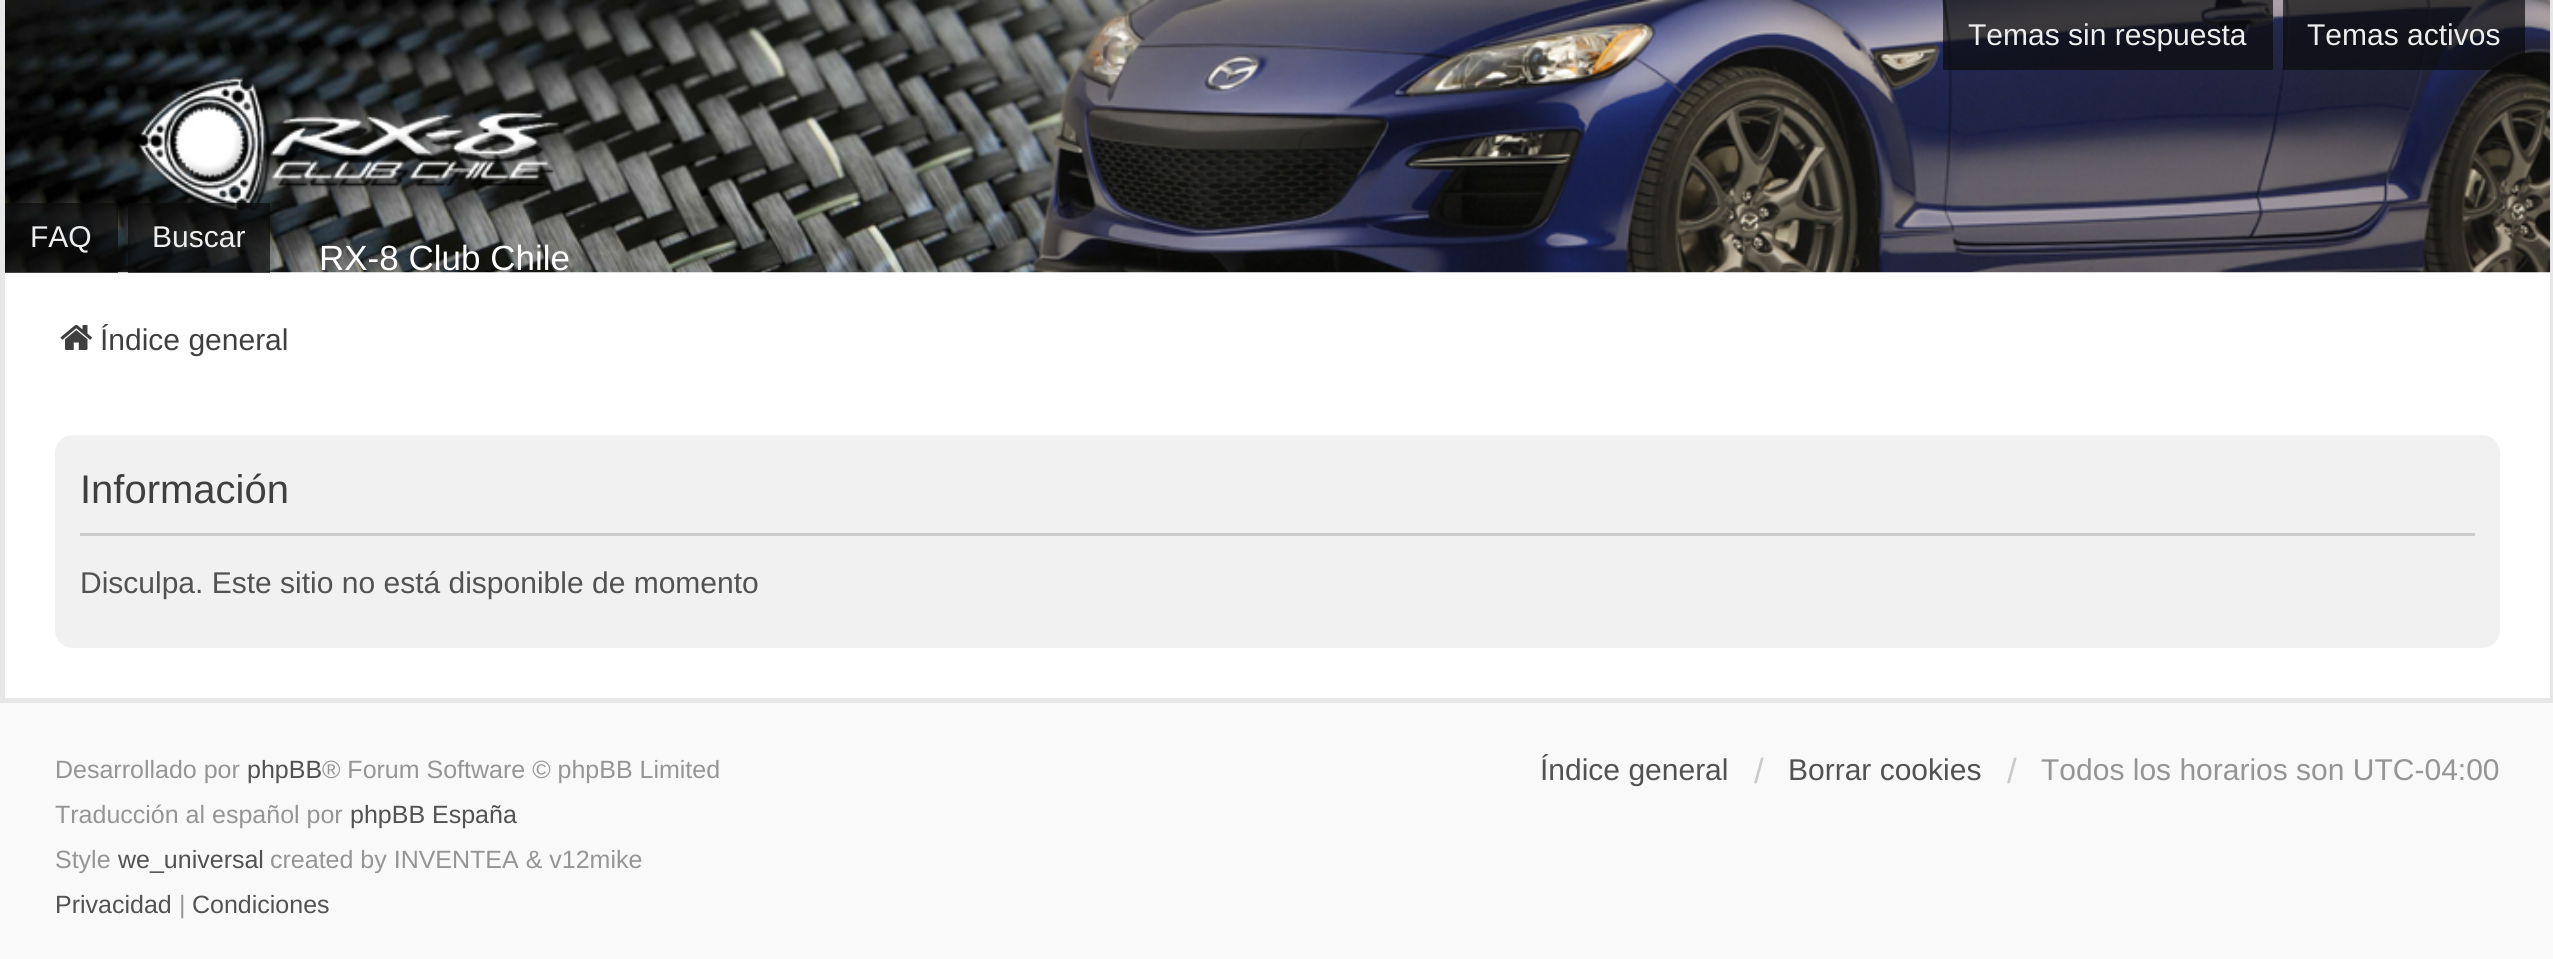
#include <cairo/cairo.h>
#include <math.h>
#include <stddef.h>


static void rounded_rect(cairo_t *cr, double x, double y, double w, double h, double r) {
  cairo_new_sub_path(cr);
  cairo_arc(cr, x + w - r, y + h - r, r, 0, M_PI / 2);
  cairo_arc(cr, x + r, y + h - r, r, M_PI / 2, M_PI);
  cairo_arc(cr, x + r, y + r, r, M_PI, 1.5 * M_PI);
  cairo_arc(cr, x + w - r, y + r, r, 1.5 * M_PI, 2 * M_PI);
  cairo_close_path(cr);
}

static void draw_image(cairo_t *cr, const char *path, double x, double y, double w, double h) {
  cairo_surface_t *image = cairo_image_surface_create_from_png(path);
  cairo_save(cr);
  cairo_set_source_surface(cr, image, x, y);
  cairo_rectangle(cr, x, y, w, h);
  cairo_fill(cr);
  cairo_restore(cr);
  cairo_surface_destroy(image);
}

static void draw(cairo_t *cr) {
  cairo_set_source_rgb(cr, 249 / 255.0, 249 / 255.0, 249 / 255.0);
  cairo_paint(cr);
  cairo_set_source_rgb(cr, 1, 1, 1);
  cairo_rectangle(cr, 5, 272, 2545, 426);
  cairo_fill(cr);
  cairo_set_source_rgb(cr, 231 / 255.0, 231 / 255.0, 231 / 255.0);
  cairo_rectangle(cr, 2550, 0, 3, 703);
  cairo_fill(cr);
  cairo_rectangle(cr, 0, 0, 5, 273);
  cairo_fill(cr);
  draw_image(cr, "images/1.png", 5, 0, 2545, 273);
  cairo_set_source_rgba(cr, 10 / 255.0, 10 / 255.0, 10 / 255.0, 0.7);
  cairo_rectangle(cr, 1943, 0, 330, 70);
  cairo_fill(cr);
  cairo_rectangle(cr, 2283, 0, 242, 70);
  cairo_fill(cr);
  cairo_rectangle(cr, 5, 203, 113, 70);
  cairo_fill(cr);
  draw_image(cr, "images/2.png", 138, 77, 427, 133);
  cairo_rectangle(cr, 128, 203, 142, 70);
  cairo_fill(cr);
  cairo_set_source_rgb(cr, 231 / 255.0, 231 / 255.0, 231 / 255.0);
  cairo_rectangle(cr, 0, 698, 2553, 5);
  cairo_fill(cr);
  cairo_rectangle(cr, 0, 273, 5, 430);
  cairo_fill(cr);
  draw_image(cr, "images/3.png", 60, 324, 32, 26);
  cairo_set_source_rgb(cr, 241 / 255.0, 241 / 255.0, 241 / 255.0);
  rounded_rect(cr, 55, 435, 2445, 213, 18);
  cairo_fill(cr);
  cairo_set_source_rgb(cr, 204 / 255.0, 204 / 255.0, 204 / 255.0);
  cairo_rectangle(cr, 80, 533, 2395, 3);
  cairo_fill(cr);
  cairo_select_font_face(cr, "Liberation Sans", CAIRO_FONT_SLANT_NORMAL, CAIRO_FONT_WEIGHT_NORMAL);
  cairo_set_font_size(cr, 30);
  cairo_set_source_rgb(cr, 238 / 255.0, 238 / 255.0, 238 / 255.0);
  cairo_move_to(cr, 1968, 45);
  cairo_show_text(cr, "Temas sin respuesta");
  cairo_move_to(cr, 2307, 45);
  cairo_show_text(cr, "Temas activos");
  cairo_move_to(cr, 30, 247);
  cairo_show_text(cr, "FAQ");
  cairo_move_to(cr, 152, 247);
  cairo_show_text(cr, "Buscar");
  cairo_set_font_size(cr, 35);
  cairo_set_source_rgb(cr, 1, 1, 1);
  cairo_move_to(cr, 319, 270);
  cairo_show_text(cr, "RX-8 Club Chile");
  cairo_set_font_size(cr, 30);
  cairo_set_source_rgb(cr, 63 / 255.0, 63 / 255.0, 63 / 255.0);
  cairo_move_to(cr, 100, 350);
  cairo_show_text(cr, "Índice general");
  cairo_set_font_size(cr, 40);
  cairo_move_to(cr, 80, 503);
  cairo_show_text(cr, "Información");
  cairo_set_font_size(cr, 30);
  cairo_set_source_rgb(cr, 82 / 255.0, 82 / 255.0, 82 / 255.0);
  cairo_move_to(cr, 80, 593);
  cairo_show_text(cr, "Disculpa. Este sitio no está disponible de momento");
  cairo_set_font_size(cr, 25);
  cairo_set_source_rgb(cr, 149 / 255.0, 149 / 255.0, 149 / 255.0);
  cairo_move_to(cr, 55, 778);
  cairo_show_text(cr, "Desarrollado por");
  cairo_set_source_rgb(cr, 82 / 255.0, 82 / 255.0, 82 / 255.0);
  cairo_move_to(cr, 247, 778);
  cairo_show_text(cr, "phpBB");
  cairo_set_source_rgb(cr, 149 / 255.0, 149 / 255.0, 149 / 255.0);
  cairo_move_to(cr, 322, 778);
  cairo_show_text(cr, "® Forum Software © phpBB Limited");
  cairo_move_to(cr, 55, 823);
  cairo_show_text(cr, "Traducción al español por");
  cairo_set_source_rgb(cr, 82 / 255.0, 82 / 255.0, 82 / 255.0);
  cairo_move_to(cr, 350, 823);
  cairo_show_text(cr, "phpBB España");
  cairo_set_source_rgb(cr, 149 / 255.0, 149 / 255.0, 149 / 255.0);
  cairo_move_to(cr, 55, 868);
  cairo_show_text(cr, "Style");
  cairo_set_source_rgb(cr, 82 / 255.0, 82 / 255.0, 82 / 255.0);
  cairo_move_to(cr, 118, 868);
  cairo_show_text(cr, "we_universal");
  cairo_set_source_rgb(cr, 149 / 255.0, 149 / 255.0, 149 / 255.0);
  cairo_move_to(cr, 270, 868);
  cairo_show_text(cr, "created by INVENTEA & v12mike");
  cairo_set_source_rgb(cr, 82 / 255.0, 82 / 255.0, 82 / 255.0);
  cairo_move_to(cr, 55, 913);
  cairo_show_text(cr, "Privacidad");
  cairo_set_source_rgb(cr, 149 / 255.0, 149 / 255.0, 149 / 255.0);
  cairo_move_to(cr, 179, 913);
  cairo_show_text(cr, "|");
  cairo_set_source_rgb(cr, 82 / 255.0, 82 / 255.0, 82 / 255.0);
  cairo_move_to(cr, 192, 913);
  cairo_show_text(cr, "Condiciones");
  cairo_set_font_size(cr, 30);
  cairo_move_to(cr, 1540, 780);
  cairo_show_text(cr, "Índice general");
  cairo_set_font_size(cr, 35);
  cairo_set_source_rgb(cr, 202 / 255.0, 202 / 255.0, 202 / 255.0);
  cairo_move_to(cr, 1754, 783);
  cairo_show_text(cr, "/");
  cairo_set_font_size(cr, 30);
  cairo_set_source_rgb(cr, 82 / 255.0, 82 / 255.0, 82 / 255.0);
  cairo_move_to(cr, 1788, 780);
  cairo_show_text(cr, "Borrar cookies");
  cairo_set_font_size(cr, 35);
  cairo_set_source_rgb(cr, 202 / 255.0, 202 / 255.0, 202 / 255.0);
  cairo_move_to(cr, 2007, 783);
  cairo_show_text(cr, "/");
  cairo_set_font_size(cr, 30);
  cairo_set_source_rgb(cr, 149 / 255.0, 149 / 255.0, 149 / 255.0);
  cairo_move_to(cr, 2041, 780);
  cairo_show_text(cr, "Todos los horarios son UTC-04:00");
}

int main(void) {
  cairo_surface_t *surface = cairo_image_surface_create(CAIRO_FORMAT_RGB24, 2553, 959);
  cairo_t *cr = cairo_create(surface);
  cairo_font_options_t *options = cairo_font_options_create();
  cairo_font_options_set_hint_metrics(options, CAIRO_HINT_METRICS_OFF);
  cairo_font_options_set_hint_style(options, CAIRO_HINT_STYLE_NONE);
  cairo_set_font_options(cr, options);
  cairo_set_miter_limit(cr, 4);
  draw(cr);
  cairo_surface_write_to_png(surface, "out.png");
  cairo_font_options_destroy(options);
  cairo_destroy(cr);
  cairo_surface_destroy(surface);
  return 0;
}
